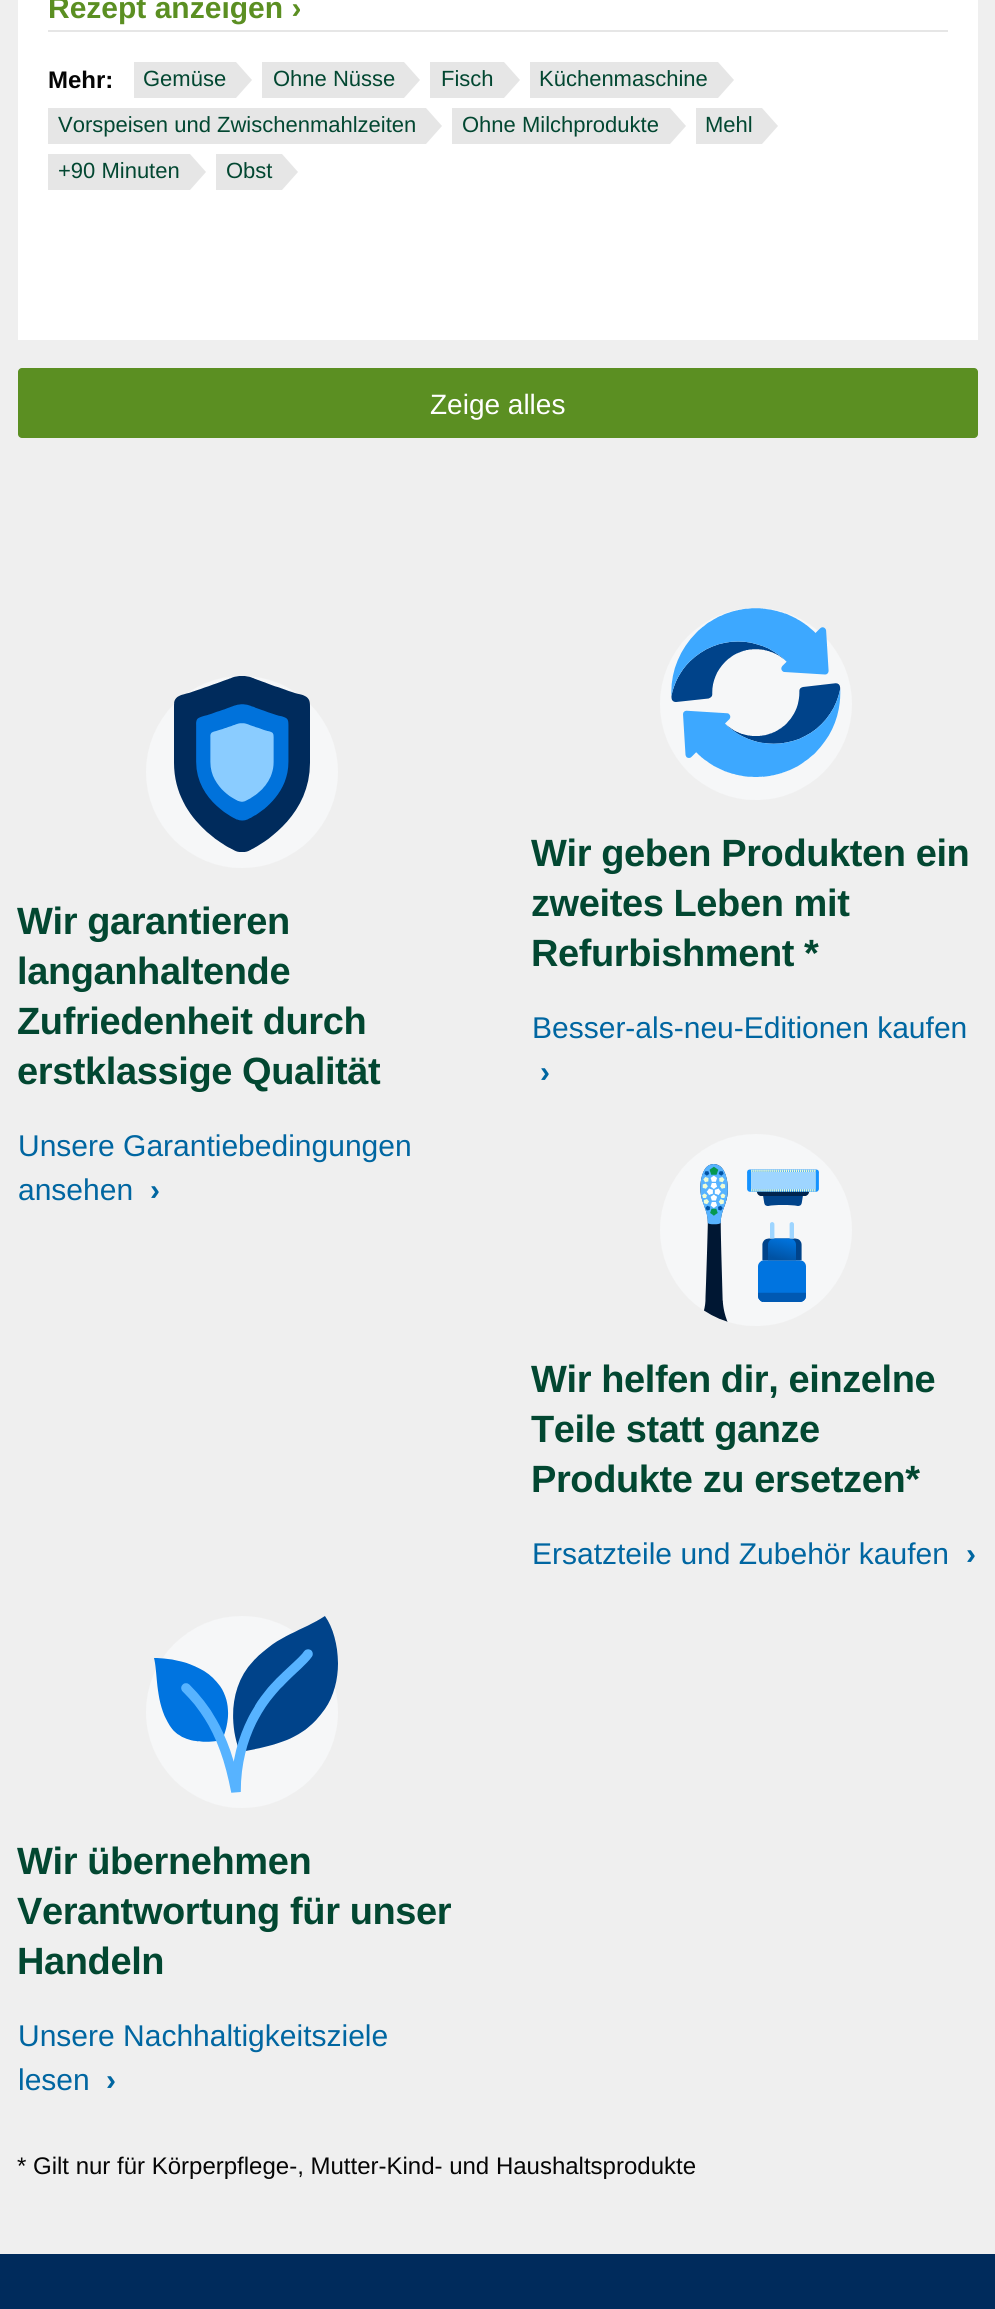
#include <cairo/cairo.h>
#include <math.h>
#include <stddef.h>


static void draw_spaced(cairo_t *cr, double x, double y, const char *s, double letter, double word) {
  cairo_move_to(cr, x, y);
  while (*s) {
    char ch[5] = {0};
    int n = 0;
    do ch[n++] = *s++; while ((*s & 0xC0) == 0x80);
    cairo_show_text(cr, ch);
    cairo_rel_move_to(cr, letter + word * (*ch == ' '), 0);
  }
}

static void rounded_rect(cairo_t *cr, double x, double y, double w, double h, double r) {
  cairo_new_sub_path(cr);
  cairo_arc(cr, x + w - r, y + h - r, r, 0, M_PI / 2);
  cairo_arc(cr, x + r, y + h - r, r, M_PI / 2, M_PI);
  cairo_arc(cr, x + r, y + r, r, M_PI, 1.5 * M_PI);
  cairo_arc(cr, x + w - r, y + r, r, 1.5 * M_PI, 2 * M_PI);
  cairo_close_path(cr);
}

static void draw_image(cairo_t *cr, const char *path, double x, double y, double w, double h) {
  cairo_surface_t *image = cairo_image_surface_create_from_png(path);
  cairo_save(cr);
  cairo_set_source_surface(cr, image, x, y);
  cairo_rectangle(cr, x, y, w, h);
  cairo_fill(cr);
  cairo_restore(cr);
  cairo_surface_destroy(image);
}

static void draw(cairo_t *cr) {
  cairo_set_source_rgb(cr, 239 / 255.0, 239 / 255.0, 239 / 255.0);
  cairo_paint(cr);
  cairo_set_source_rgb(cr, 1, 1, 1);
  cairo_rectangle(cr, 18, 0, 960, 340);
  cairo_fill(cr);
  cairo_set_source_rgb(cr, 230 / 255.0, 230 / 255.0, 230 / 255.0);
  cairo_rectangle(cr, 48, 30, 900, 2);
  cairo_fill(cr);
  cairo_rectangle(cr, 134, 62, 102, 36);
  cairo_fill(cr);
  cairo_new_path(cr);
  cairo_move_to(cr, 236, 98);
  cairo_line_to(cr, 236, 62);
  cairo_line_to(cr, 252, 80);
  cairo_close_path(cr);
  cairo_fill(cr);
  cairo_rectangle(cr, 262, 62, 142, 36);
  cairo_fill(cr);
  cairo_new_path(cr);
  cairo_move_to(cr, 404, 98);
  cairo_line_to(cr, 404, 62);
  cairo_line_to(cr, 420, 80);
  cairo_close_path(cr);
  cairo_fill(cr);
  cairo_rectangle(cr, 430, 62, 74, 36);
  cairo_fill(cr);
  cairo_new_path(cr);
  cairo_move_to(cr, 504, 98);
  cairo_line_to(cr, 504, 62);
  cairo_line_to(cr, 520, 80);
  cairo_close_path(cr);
  cairo_fill(cr);
  cairo_rectangle(cr, 530, 62, 188, 36);
  cairo_fill(cr);
  cairo_new_path(cr);
  cairo_move_to(cr, 718, 98);
  cairo_line_to(cr, 718, 62);
  cairo_line_to(cr, 734, 80);
  cairo_close_path(cr);
  cairo_fill(cr);
  cairo_rectangle(cr, 48, 108, 378, 36);
  cairo_fill(cr);
  cairo_new_path(cr);
  cairo_move_to(cr, 426, 144);
  cairo_line_to(cr, 426, 108);
  cairo_line_to(cr, 442, 126);
  cairo_close_path(cr);
  cairo_fill(cr);
  cairo_rectangle(cr, 452, 108, 218, 36);
  cairo_fill(cr);
  cairo_new_path(cr);
  cairo_move_to(cr, 670, 144);
  cairo_line_to(cr, 670, 108);
  cairo_line_to(cr, 686, 126);
  cairo_close_path(cr);
  cairo_fill(cr);
  cairo_rectangle(cr, 696, 108, 66, 36);
  cairo_fill(cr);
  cairo_new_path(cr);
  cairo_move_to(cr, 762, 144);
  cairo_line_to(cr, 762, 108);
  cairo_line_to(cr, 778, 126);
  cairo_close_path(cr);
  cairo_fill(cr);
  cairo_rectangle(cr, 48, 154, 142, 36);
  cairo_fill(cr);
  cairo_new_path(cr);
  cairo_move_to(cr, 190, 190);
  cairo_line_to(cr, 190, 154);
  cairo_line_to(cr, 206, 172);
  cairo_close_path(cr);
  cairo_fill(cr);
  cairo_rectangle(cr, 216, 154, 66, 36);
  cairo_fill(cr);
  cairo_new_path(cr);
  cairo_move_to(cr, 282, 190);
  cairo_line_to(cr, 282, 154);
  cairo_line_to(cr, 298, 172);
  cairo_close_path(cr);
  cairo_fill(cr);
  cairo_set_source_rgb(cr, 91 / 255.0, 143 / 255.0, 34 / 255.0);
  rounded_rect(cr, 18, 368, 960, 70, 4);
  cairo_fill(cr);
  draw_image(cr, "images/1.png", 146, 676, 192, 192);
  draw_image(cr, "images/2.png", 660, 608, 192, 192);
  draw_image(cr, "images/3.png", 660, 1134, 192, 192);
  draw_image(cr, "images/4.png", 146, 1616, 192, 192);
  cairo_set_source_rgb(cr, 0, 43 / 255.0, 92 / 255.0);
  cairo_rectangle(cr, 0, 2254, 995, 55);
  cairo_fill(cr);
  cairo_select_font_face(cr, "Liberation Sans", CAIRO_FONT_SLANT_NORMAL, CAIRO_FONT_WEIGHT_BOLD);
  cairo_set_font_size(cr, 30);
  cairo_set_source_rgb(cr, 91 / 255.0, 143 / 255.0, 34 / 255.0);
  cairo_move_to(cr, 48, 18);
  cairo_show_text(cr, "Rezept anzeigen ›");
  cairo_set_font_size(cr, 24);
  cairo_set_source_rgb(cr, 5 / 255.0, 5 / 255.0, 5 / 255.0);
  cairo_move_to(cr, 48, 88);
  cairo_show_text(cr, "Mehr:");
  cairo_select_font_face(cr, "Liberation Sans", CAIRO_FONT_SLANT_NORMAL, CAIRO_FONT_WEIGHT_NORMAL);
  cairo_set_font_size(cr, 22);
  cairo_set_source_rgb(cr, 2 / 255.0, 71 / 255.0, 49 / 255.0);
  cairo_move_to(cr, 143, 86);
  cairo_show_text(cr, "Gemüse");
  cairo_move_to(cr, 273, 86);
  cairo_show_text(cr, "Ohne Nüsse");
  cairo_move_to(cr, 441, 86);
  cairo_show_text(cr, "Fisch");
  cairo_move_to(cr, 539, 86);
  cairo_show_text(cr, "Küchenmaschine");
  cairo_move_to(cr, 58, 132);
  cairo_show_text(cr, "Vorspeisen und Zwischenmahlzeiten");
  cairo_move_to(cr, 462, 132);
  cairo_show_text(cr, "Ohne Milchprodukte");
  cairo_move_to(cr, 705, 132);
  cairo_show_text(cr, "Mehl");
  cairo_move_to(cr, 58, 178);
  cairo_show_text(cr, "+90 Minuten");
  cairo_move_to(cr, 226, 178);
  cairo_show_text(cr, "Obst");
  cairo_set_font_size(cr, 28);
  cairo_set_source_rgb(cr, 1, 1, 1);
  cairo_move_to(cr, 430, 414);
  cairo_show_text(cr, "Zeige alles");
  cairo_select_font_face(cr, "Liberation Sans", CAIRO_FONT_SLANT_NORMAL, CAIRO_FONT_WEIGHT_BOLD);
  cairo_set_font_size(cr, 38);
  cairo_set_source_rgb(cr, 2 / 255.0, 71 / 255.0, 49 / 255.0);
  draw_spaced(cr, 17, 934, "Wir garantieren", -0.4, 0);
  draw_spaced(cr, 17, 984, "langanhaltende", -0.4, 0);
  draw_spaced(cr, 17, 1034, "Zufriedenheit durch", -0.4, 0);
  draw_spaced(cr, 17, 1084, "erstklassige Qualität", -0.4, 0);
  cairo_select_font_face(cr, "Liberation Sans", CAIRO_FONT_SLANT_NORMAL, CAIRO_FONT_WEIGHT_NORMAL);
  cairo_set_font_size(cr, 30);
  cairo_set_source_rgb(cr, 0, 102 / 255.0, 161 / 255.0);
  cairo_move_to(cr, 18, 1156);
  cairo_show_text(cr, "Unsere Garantiebedingungen");
  cairo_move_to(cr, 18, 1200);
  cairo_show_text(cr, "ansehen");
  cairo_select_font_face(cr, "Liberation Sans", CAIRO_FONT_SLANT_NORMAL, CAIRO_FONT_WEIGHT_BOLD);
  cairo_move_to(cr, 150, 1200);
  cairo_show_text(cr, "›");
  cairo_set_font_size(cr, 38);
  cairo_set_source_rgb(cr, 2 / 255.0, 71 / 255.0, 49 / 255.0);
  draw_spaced(cr, 531, 866, "Wir geben Produkten ein", -0.4, 0);
  draw_spaced(cr, 531, 916, "zweites Leben mit", -0.4, 0);
  draw_spaced(cr, 531, 966, "Refurbishment *", -0.4, 0);
  cairo_select_font_face(cr, "Liberation Sans", CAIRO_FONT_SLANT_NORMAL, CAIRO_FONT_WEIGHT_NORMAL);
  cairo_set_font_size(cr, 30);
  cairo_set_source_rgb(cr, 0, 102 / 255.0, 161 / 255.0);
  cairo_move_to(cr, 532, 1038);
  cairo_show_text(cr, "Besser-als-neu-Editionen kaufen");
  cairo_select_font_face(cr, "Liberation Sans", CAIRO_FONT_SLANT_NORMAL, CAIRO_FONT_WEIGHT_BOLD);
  cairo_move_to(cr, 540, 1082);
  cairo_show_text(cr, "›");
  cairo_set_font_size(cr, 38);
  cairo_set_source_rgb(cr, 2 / 255.0, 71 / 255.0, 49 / 255.0);
  draw_spaced(cr, 531, 1392, "Wir helfen dir, einzelne", -0.4, 0);
  draw_spaced(cr, 531, 1442, "Teile statt ganze", -0.4, 0);
  draw_spaced(cr, 531, 1492, "Produkte zu ersetzen*", -0.4, 0);
  cairo_select_font_face(cr, "Liberation Sans", CAIRO_FONT_SLANT_NORMAL, CAIRO_FONT_WEIGHT_NORMAL);
  cairo_set_font_size(cr, 30);
  cairo_set_source_rgb(cr, 0, 102 / 255.0, 161 / 255.0);
  cairo_move_to(cr, 532, 1564);
  cairo_show_text(cr, "Ersatzteile und Zubehör kaufen");
  cairo_select_font_face(cr, "Liberation Sans", CAIRO_FONT_SLANT_NORMAL, CAIRO_FONT_WEIGHT_BOLD);
  cairo_move_to(cr, 966, 1564);
  cairo_show_text(cr, "›");
  cairo_set_font_size(cr, 38);
  cairo_set_source_rgb(cr, 2 / 255.0, 71 / 255.0, 49 / 255.0);
  draw_spaced(cr, 17, 1874, "Wir übernehmen", -0.4, 0);
  draw_spaced(cr, 17, 1924, "Verantwortung für unser", -0.4, 0);
  draw_spaced(cr, 17, 1974, "Handeln", -0.4, 0);
  cairo_select_font_face(cr, "Liberation Sans", CAIRO_FONT_SLANT_NORMAL, CAIRO_FONT_WEIGHT_NORMAL);
  cairo_set_font_size(cr, 30);
  cairo_set_source_rgb(cr, 0, 102 / 255.0, 161 / 255.0);
  cairo_move_to(cr, 18, 2046);
  cairo_show_text(cr, "Unsere Nachhaltigkeitsziele");
  cairo_move_to(cr, 18, 2090);
  cairo_show_text(cr, "lesen");
  cairo_select_font_face(cr, "Liberation Sans", CAIRO_FONT_SLANT_NORMAL, CAIRO_FONT_WEIGHT_BOLD);
  cairo_move_to(cr, 106, 2090);
  cairo_show_text(cr, "›");
  cairo_select_font_face(cr, "Liberation Sans", CAIRO_FONT_SLANT_NORMAL, CAIRO_FONT_WEIGHT_NORMAL);
  cairo_set_font_size(cr, 24);
  cairo_set_source_rgb(cr, 5 / 255.0, 5 / 255.0, 5 / 255.0);
  cairo_move_to(cr, 17, 2174);
  cairo_show_text(cr, "* Gilt nur für Körperpflege-, Mutter-Kind- und Haushaltsprodukte");
}

int main(void) {
  cairo_surface_t *surface = cairo_image_surface_create(CAIRO_FORMAT_RGB24, 995, 2309);
  cairo_t *cr = cairo_create(surface);
  cairo_font_options_t *options = cairo_font_options_create();
  cairo_font_options_set_hint_metrics(options, CAIRO_HINT_METRICS_OFF);
  cairo_font_options_set_hint_style(options, CAIRO_HINT_STYLE_NONE);
  cairo_set_font_options(cr, options);
  cairo_set_miter_limit(cr, 4);
  draw(cr);
  cairo_surface_write_to_png(surface, "out.png");
  cairo_font_options_destroy(options);
  cairo_destroy(cr);
  cairo_surface_destroy(surface);
  return 0;
}
